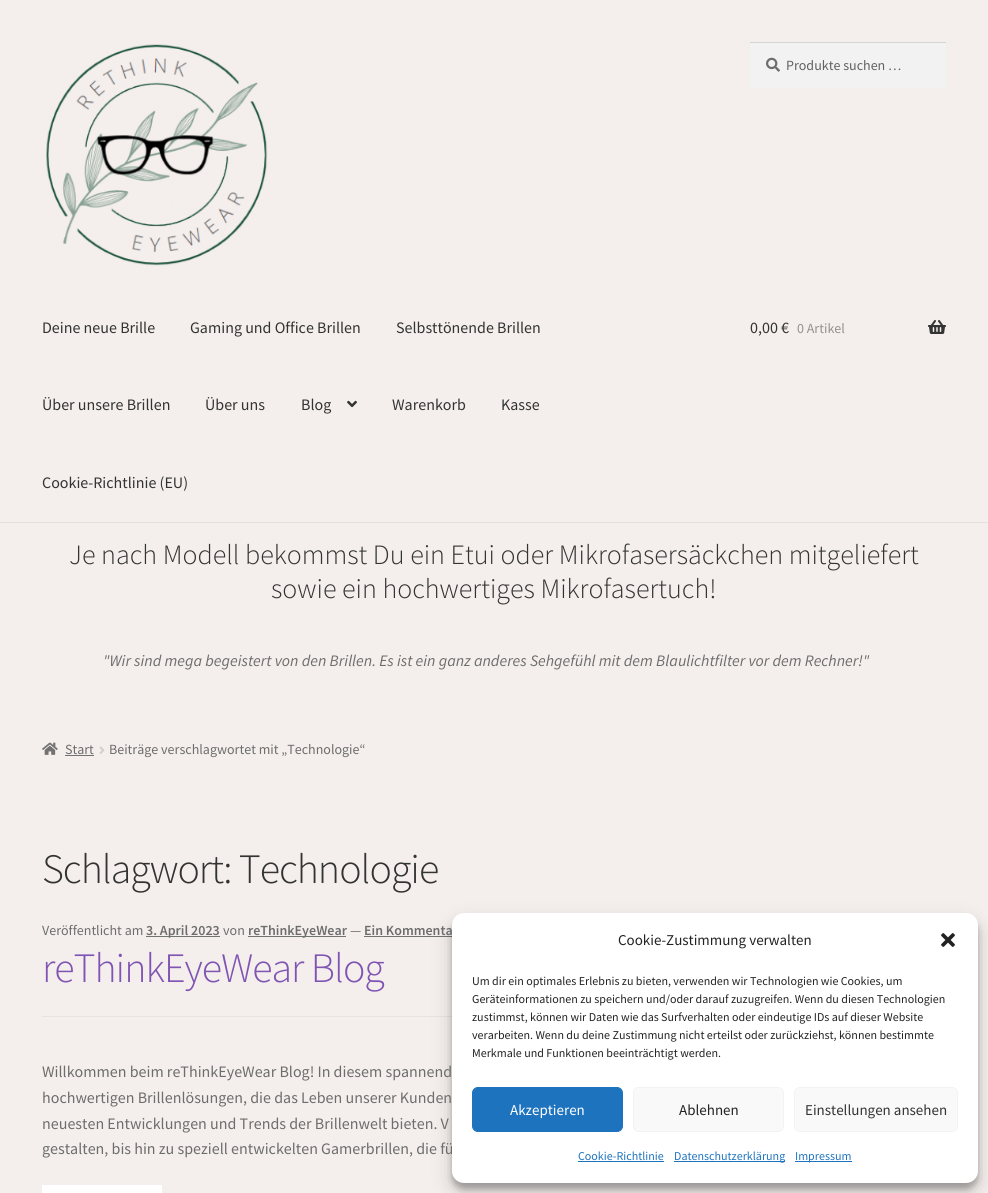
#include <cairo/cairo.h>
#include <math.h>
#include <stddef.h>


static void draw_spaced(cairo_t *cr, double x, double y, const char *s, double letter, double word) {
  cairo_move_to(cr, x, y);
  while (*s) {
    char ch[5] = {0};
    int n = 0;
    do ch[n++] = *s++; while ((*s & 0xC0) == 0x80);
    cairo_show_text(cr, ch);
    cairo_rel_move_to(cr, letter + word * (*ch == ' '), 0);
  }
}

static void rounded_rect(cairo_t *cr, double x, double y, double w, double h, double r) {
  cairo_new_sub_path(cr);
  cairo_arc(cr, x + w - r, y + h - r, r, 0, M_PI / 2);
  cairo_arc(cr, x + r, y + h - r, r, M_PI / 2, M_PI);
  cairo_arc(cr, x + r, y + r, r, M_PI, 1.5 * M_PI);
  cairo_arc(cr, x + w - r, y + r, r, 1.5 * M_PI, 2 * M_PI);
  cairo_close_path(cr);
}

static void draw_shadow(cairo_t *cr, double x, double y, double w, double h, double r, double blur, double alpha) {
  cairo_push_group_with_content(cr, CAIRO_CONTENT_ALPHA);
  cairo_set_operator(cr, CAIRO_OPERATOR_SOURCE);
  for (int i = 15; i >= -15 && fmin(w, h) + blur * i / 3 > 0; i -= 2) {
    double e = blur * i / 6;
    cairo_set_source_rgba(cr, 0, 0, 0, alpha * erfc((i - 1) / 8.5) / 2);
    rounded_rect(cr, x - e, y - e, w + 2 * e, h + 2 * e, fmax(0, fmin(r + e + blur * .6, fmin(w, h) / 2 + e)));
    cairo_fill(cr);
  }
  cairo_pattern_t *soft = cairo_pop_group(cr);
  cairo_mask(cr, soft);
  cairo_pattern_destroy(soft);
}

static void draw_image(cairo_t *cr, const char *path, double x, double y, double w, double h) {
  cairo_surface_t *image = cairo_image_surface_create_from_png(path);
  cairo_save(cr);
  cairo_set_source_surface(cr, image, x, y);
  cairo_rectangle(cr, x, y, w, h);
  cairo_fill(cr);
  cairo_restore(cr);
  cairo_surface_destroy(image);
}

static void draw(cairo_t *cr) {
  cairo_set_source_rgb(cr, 244 / 255.0, 239 / 255.0, 237 / 255.0);
  cairo_paint(cr);
  cairo_set_source_rgb(cr, 229 / 255.0, 224 / 255.0, 222 / 255.0);
  cairo_rectangle(cr, 0, 522, 988, 1);
  cairo_fill(cr);
  draw_image(cr, "images/1.png", 46, 44, 222, 222);
  cairo_set_source_rgb(cr, 242 / 255.0, 242 / 255.0, 242 / 255.0);
  cairo_rectangle(cr, 750, 43, 196, 45);
  cairo_fill(cr);
  draw_image(cr, "images/2.png", 766, 57, 14, 15);
  cairo_set_source_rgb(cr, 212 / 255.0, 212 / 255.0, 212 / 255.0);
  cairo_rectangle(cr, 750, 42, 196, 1);
  cairo_fill(cr);
  draw_image(cr, "images/3.png", 347, 400, 10, 8);
  draw_image(cr, "images/4.png", 928, 320, 18, 14);
  draw_image(cr, "images/5.png", 42, 742, 16, 13);
  cairo_set_source_rgb(cr, 114 / 255.0, 114 / 255.0, 114 / 255.0);
  cairo_rectangle(cr, 65, 755, 29, 1);
  cairo_fill(cr);
  draw_image(cr, "images/6.png", 99, 746, 6, 8);
  cairo_set_source_rgb(cr, 232 / 255.0, 227 / 255.0, 225 / 255.0);
  cairo_rectangle(cr, 42, 1016, 410, 1);
  cairo_fill(cr);
  cairo_set_source_rgb(cr, 114 / 255.0, 114 / 255.0, 114 / 255.0);
  cairo_rectangle(cr, 146, 936, 74, 1);
  cairo_fill(cr);
  cairo_rectangle(cr, 248, 936, 98, 1);
  cairo_fill(cr);
  cairo_rectangle(cr, 364, 936, 94, 1);
  cairo_fill(cr);
  cairo_set_source_rgb(cr, 1, 1, 1);
  cairo_rectangle(cr, 42, 1185, 120, 8);
  cairo_fill(cr);
  cairo_set_source_rgb(cr, 0, 0, 0);
  draw_shadow(cr, 452, 919, 526, 270, 12, 3, 0.23);
  draw_shadow(cr, 452, 923, 526, 270, 12, 10, 0.19);
  cairo_select_font_face(cr, "Source Sans Pro", CAIRO_FONT_SLANT_NORMAL, CAIRO_FONT_WEIGHT_NORMAL);
  cairo_set_font_size(cr, 14);
  cairo_set_source_rgb(cr, 97 / 255.0, 97 / 255.0, 97 / 255.0);
  cairo_move_to(cr, 786, 70);
  cairo_show_text(cr, "Produkte suchen …");
  cairo_set_font_size(cr, 16);
  cairo_set_source_rgb(cr, 51 / 255.0, 51 / 255.0, 51 / 255.0);
  cairo_move_to(cr, 42, 333);
  cairo_show_text(cr, "Deine neue Brille");
  cairo_move_to(cr, 190, 333);
  cairo_show_text(cr, "Gaming und Office Brillen");
  cairo_move_to(cr, 396, 333);
  cairo_show_text(cr, "Selbsttönende Brillen");
  cairo_move_to(cr, 42, 410);
  cairo_show_text(cr, "Über unsere Brillen");
  cairo_move_to(cr, 205, 410);
  cairo_show_text(cr, "Über uns");
  cairo_move_to(cr, 301, 410);
  cairo_show_text(cr, "Blog");
  cairo_move_to(cr, 392, 410);
  cairo_show_text(cr, "Warenkorb");
  cairo_move_to(cr, 501, 410);
  cairo_show_text(cr, "Kasse");
  cairo_move_to(cr, 42, 488);
  cairo_show_text(cr, "Cookie-Richtlinie (EU)");
  cairo_move_to(cr, 750, 333);
  cairo_show_text(cr, "0,00 €");
  cairo_set_font_size(cr, 14);
  cairo_set_source_rgb(cr, 148 / 255.0, 145 / 255.0, 144 / 255.0);
  cairo_move_to(cr, 797, 333);
  cairo_show_text(cr, "0 Artikel");
  cairo_select_font_face(cr, "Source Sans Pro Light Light", CAIRO_FONT_SLANT_NORMAL, CAIRO_FONT_WEIGHT_NORMAL);
  cairo_set_font_size(cr, 28);
  cairo_set_source_rgb(cr, 51 / 255.0, 51 / 255.0, 51 / 255.0);
  cairo_move_to(cr, 69, 564);
  cairo_show_text(cr, "Je nach Modell bekommst Du ein Etui oder Mikrofasersäckchen mitgeliefert");
  cairo_move_to(cr, 271, 598);
  cairo_show_text(cr, "sowie ein hochwertiges Mikrofasertuch!");
  cairo_select_font_face(cr, "Source Sans Pro", CAIRO_FONT_SLANT_ITALIC, CAIRO_FONT_WEIGHT_NORMAL);
  cairo_set_font_size(cr, 16);
  cairo_set_source_rgb(cr, 109 / 255.0, 109 / 255.0, 109 / 255.0);
  cairo_move_to(cr, 103, 666);
  cairo_show_text(cr, "\"Wir sind mega begeistert von den Brillen. Es ist ein ganz anderes Sehgefühl mit dem Blaulichtfilter vor dem Rechner!\"");
  cairo_select_font_face(cr, "Source Sans Pro", CAIRO_FONT_SLANT_NORMAL, CAIRO_FONT_WEIGHT_NORMAL);
  cairo_set_font_size(cr, 14);
  cairo_move_to(cr, 65, 754);
  cairo_show_text(cr, "Start");
  cairo_move_to(cr, 109, 754);
  cairo_show_text(cr, "Beiträge verschlagwortet mit „Technologie“");
  cairo_select_font_face(cr, "Source Sans Pro Light Light", CAIRO_FONT_SLANT_NORMAL, CAIRO_FONT_WEIGHT_NORMAL);
  cairo_set_font_size(cr, 41.9);
  cairo_set_source_rgb(cr, 51 / 255.0, 51 / 255.0, 51 / 255.0);
  draw_spaced(cr, 42, 883, "Schlagwort: Technologie", -1, 0);
  cairo_select_font_face(cr, "Source Sans Pro", CAIRO_FONT_SLANT_NORMAL, CAIRO_FONT_WEIGHT_NORMAL);
  cairo_set_font_size(cr, 14);
  cairo_set_source_rgb(cr, 109 / 255.0, 109 / 255.0, 109 / 255.0);
  cairo_move_to(cr, 42, 935);
  cairo_show_text(cr, "Veröffentlicht am");
  cairo_select_font_face(cr, "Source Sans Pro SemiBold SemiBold", CAIRO_FONT_SLANT_NORMAL, CAIRO_FONT_WEIGHT_NORMAL);
  cairo_move_to(cr, 146, 935);
  cairo_show_text(cr, "3. April 2023");
  cairo_select_font_face(cr, "Source Sans Pro", CAIRO_FONT_SLANT_NORMAL, CAIRO_FONT_WEIGHT_NORMAL);
  cairo_move_to(cr, 223, 935);
  cairo_show_text(cr, "von");
  cairo_select_font_face(cr, "Source Sans Pro SemiBold SemiBold", CAIRO_FONT_SLANT_NORMAL, CAIRO_FONT_WEIGHT_NORMAL);
  cairo_move_to(cr, 248, 935);
  cairo_show_text(cr, "reThinkEyeWear");
  cairo_select_font_face(cr, "Source Sans Pro", CAIRO_FONT_SLANT_NORMAL, CAIRO_FONT_WEIGHT_NORMAL);
  cairo_move_to(cr, 350, 935);
  cairo_show_text(cr, "—");
  cairo_select_font_face(cr, "Source Sans Pro SemiBold SemiBold", CAIRO_FONT_SLANT_NORMAL, CAIRO_FONT_WEIGHT_NORMAL);
  cairo_move_to(cr, 364, 935);
  cairo_show_text(cr, "Ein Kommenta");
  cairo_select_font_face(cr, "Source Sans Pro Light Light", CAIRO_FONT_SLANT_NORMAL, CAIRO_FONT_WEIGHT_NORMAL);
  cairo_set_font_size(cr, 41.9);
  cairo_set_source_rgb(cr, 127 / 255.0, 84 / 255.0, 179 / 255.0);
  draw_spaced(cr, 42, 982, "reThinkEyeWear Blog", -1, 0);
  cairo_select_font_face(cr, "Source Sans Pro", CAIRO_FONT_SLANT_NORMAL, CAIRO_FONT_WEIGHT_NORMAL);
  cairo_set_font_size(cr, 16);
  cairo_set_source_rgb(cr, 109 / 255.0, 109 / 255.0, 109 / 255.0);
  cairo_move_to(cr, 42, 1077);
  cairo_show_text(cr, "Willkommen beim reThinkEyeWear Blog! In diesem spannend");
  cairo_move_to(cr, 42, 1103);
  cairo_show_text(cr, "hochwertigen Brillenlösungen, die das Leben unserer Kunden");
  cairo_move_to(cr, 42, 1129);
  cairo_show_text(cr, "neuesten Entwicklungen und Trends der Brillenwelt bieten. V");
  cairo_move_to(cr, 42, 1154);
  cairo_show_text(cr, "gestalten, bis hin zu speziell entwickelten Gamerbrillen, die fü");
  cairo_set_source_rgb(cr, 1, 1, 1);
  rounded_rect(cr, 452, 913, 526, 270, 12);
  cairo_fill(cr);
  cairo_set_font_size(cr, 15);
  cairo_set_source_rgb(cr, 34 / 255.0, 34 / 255.0, 34 / 255.0);
  cairo_move_to(cr, 618, 945);
  cairo_show_text(cr, "Cookie-Zustimmung verwalten");
  draw_image(cr, "images/7.png", 941, 933, 14, 14);
  cairo_set_font_size(cr, 12);
  cairo_move_to(cr, 472, 985);
  cairo_show_text(cr, "Um dir ein optimales Erlebnis zu bieten, verwenden wir Technologien wie Cookies, um");
  cairo_move_to(cr, 472, 1003);
  cairo_show_text(cr, "Geräteinformationen zu speichern und/oder darauf zuzugreifen. Wenn du diesen Technologien");
  cairo_move_to(cr, 472, 1021);
  cairo_show_text(cr, "zustimmst, können wir Daten wie das Surfverhalten oder eindeutige IDs auf dieser Website");
  cairo_move_to(cr, 472, 1039);
  cairo_show_text(cr, "verarbeiten. Wenn du deine Zustimmung nicht erteilst oder zurückziehst, können bestimmte");
  cairo_move_to(cr, 472, 1057);
  cairo_show_text(cr, "Merkmale und Funktionen beeinträchtigt werden.");
  cairo_set_source_rgb(cr, 30 / 255.0, 115 / 255.0, 190 / 255.0);
  rounded_rect(cr, 472.5, 1087.5, 150, 44, 5.5);
  cairo_fill_preserve(cr);
  cairo_set_line_width(cr, 1);
  cairo_stroke(cr);
  cairo_set_font_size(cr, 15);
  cairo_set_source_rgb(cr, 1, 1, 1);
  cairo_move_to(cr, 510, 1115);
  cairo_show_text(cr, "Akzeptieren");
  cairo_set_source_rgb(cr, 249 / 255.0, 249 / 255.0, 249 / 255.0);
  rounded_rect(cr, 633.5, 1087.5, 150, 44, 5.5);
  cairo_fill_preserve(cr);
  cairo_set_source_rgb(cr, 242 / 255.0, 242 / 255.0, 242 / 255.0);
  cairo_stroke(cr);
  cairo_set_source_rgb(cr, 34 / 255.0, 34 / 255.0, 34 / 255.0);
  cairo_move_to(cr, 679, 1115);
  cairo_show_text(cr, "Ablehnen");
  cairo_set_source_rgb(cr, 249 / 255.0, 249 / 255.0, 249 / 255.0);
  rounded_rect(cr, 794.5, 1087.5, 163, 44, 5.5);
  cairo_fill_preserve(cr);
  cairo_set_source_rgb(cr, 242 / 255.0, 242 / 255.0, 242 / 255.0);
  cairo_stroke(cr);
  cairo_set_source_rgb(cr, 51 / 255.0, 51 / 255.0, 51 / 255.0);
  cairo_move_to(cr, 805, 1115);
  cairo_show_text(cr, "Einstellungen ansehen");
  cairo_set_font_size(cr, 12);
  cairo_set_source_rgb(cr, 30 / 255.0, 115 / 255.0, 190 / 255.0);
  cairo_move_to(cr, 578, 1160);
  cairo_show_text(cr, "Cookie-Richtlinie");
  cairo_rectangle(cr, 578, 1161, 86, 1);
  cairo_fill(cr);
  cairo_rectangle(cr, 674, 1161, 111, 1);
  cairo_fill(cr);
  cairo_move_to(cr, 674, 1160);
  cairo_show_text(cr, "Datenschutzerklärung");
  cairo_rectangle(cr, 795, 1161, 57, 1);
  cairo_fill(cr);
  cairo_move_to(cr, 795, 1160);
  cairo_show_text(cr, "Impressum");
}

int main(void) {
  cairo_surface_t *surface = cairo_image_surface_create(CAIRO_FORMAT_RGB24, 988, 1193);
  cairo_t *cr = cairo_create(surface);
  cairo_font_options_t *options = cairo_font_options_create();
  cairo_font_options_set_hint_metrics(options, CAIRO_HINT_METRICS_OFF);
  cairo_font_options_set_hint_style(options, CAIRO_HINT_STYLE_NONE);
  cairo_set_font_options(cr, options);
  cairo_set_miter_limit(cr, 4);
  draw(cr);
  cairo_surface_write_to_png(surface, "out.png");
  cairo_font_options_destroy(options);
  cairo_destroy(cr);
  cairo_surface_destroy(surface);
  return 0;
}
